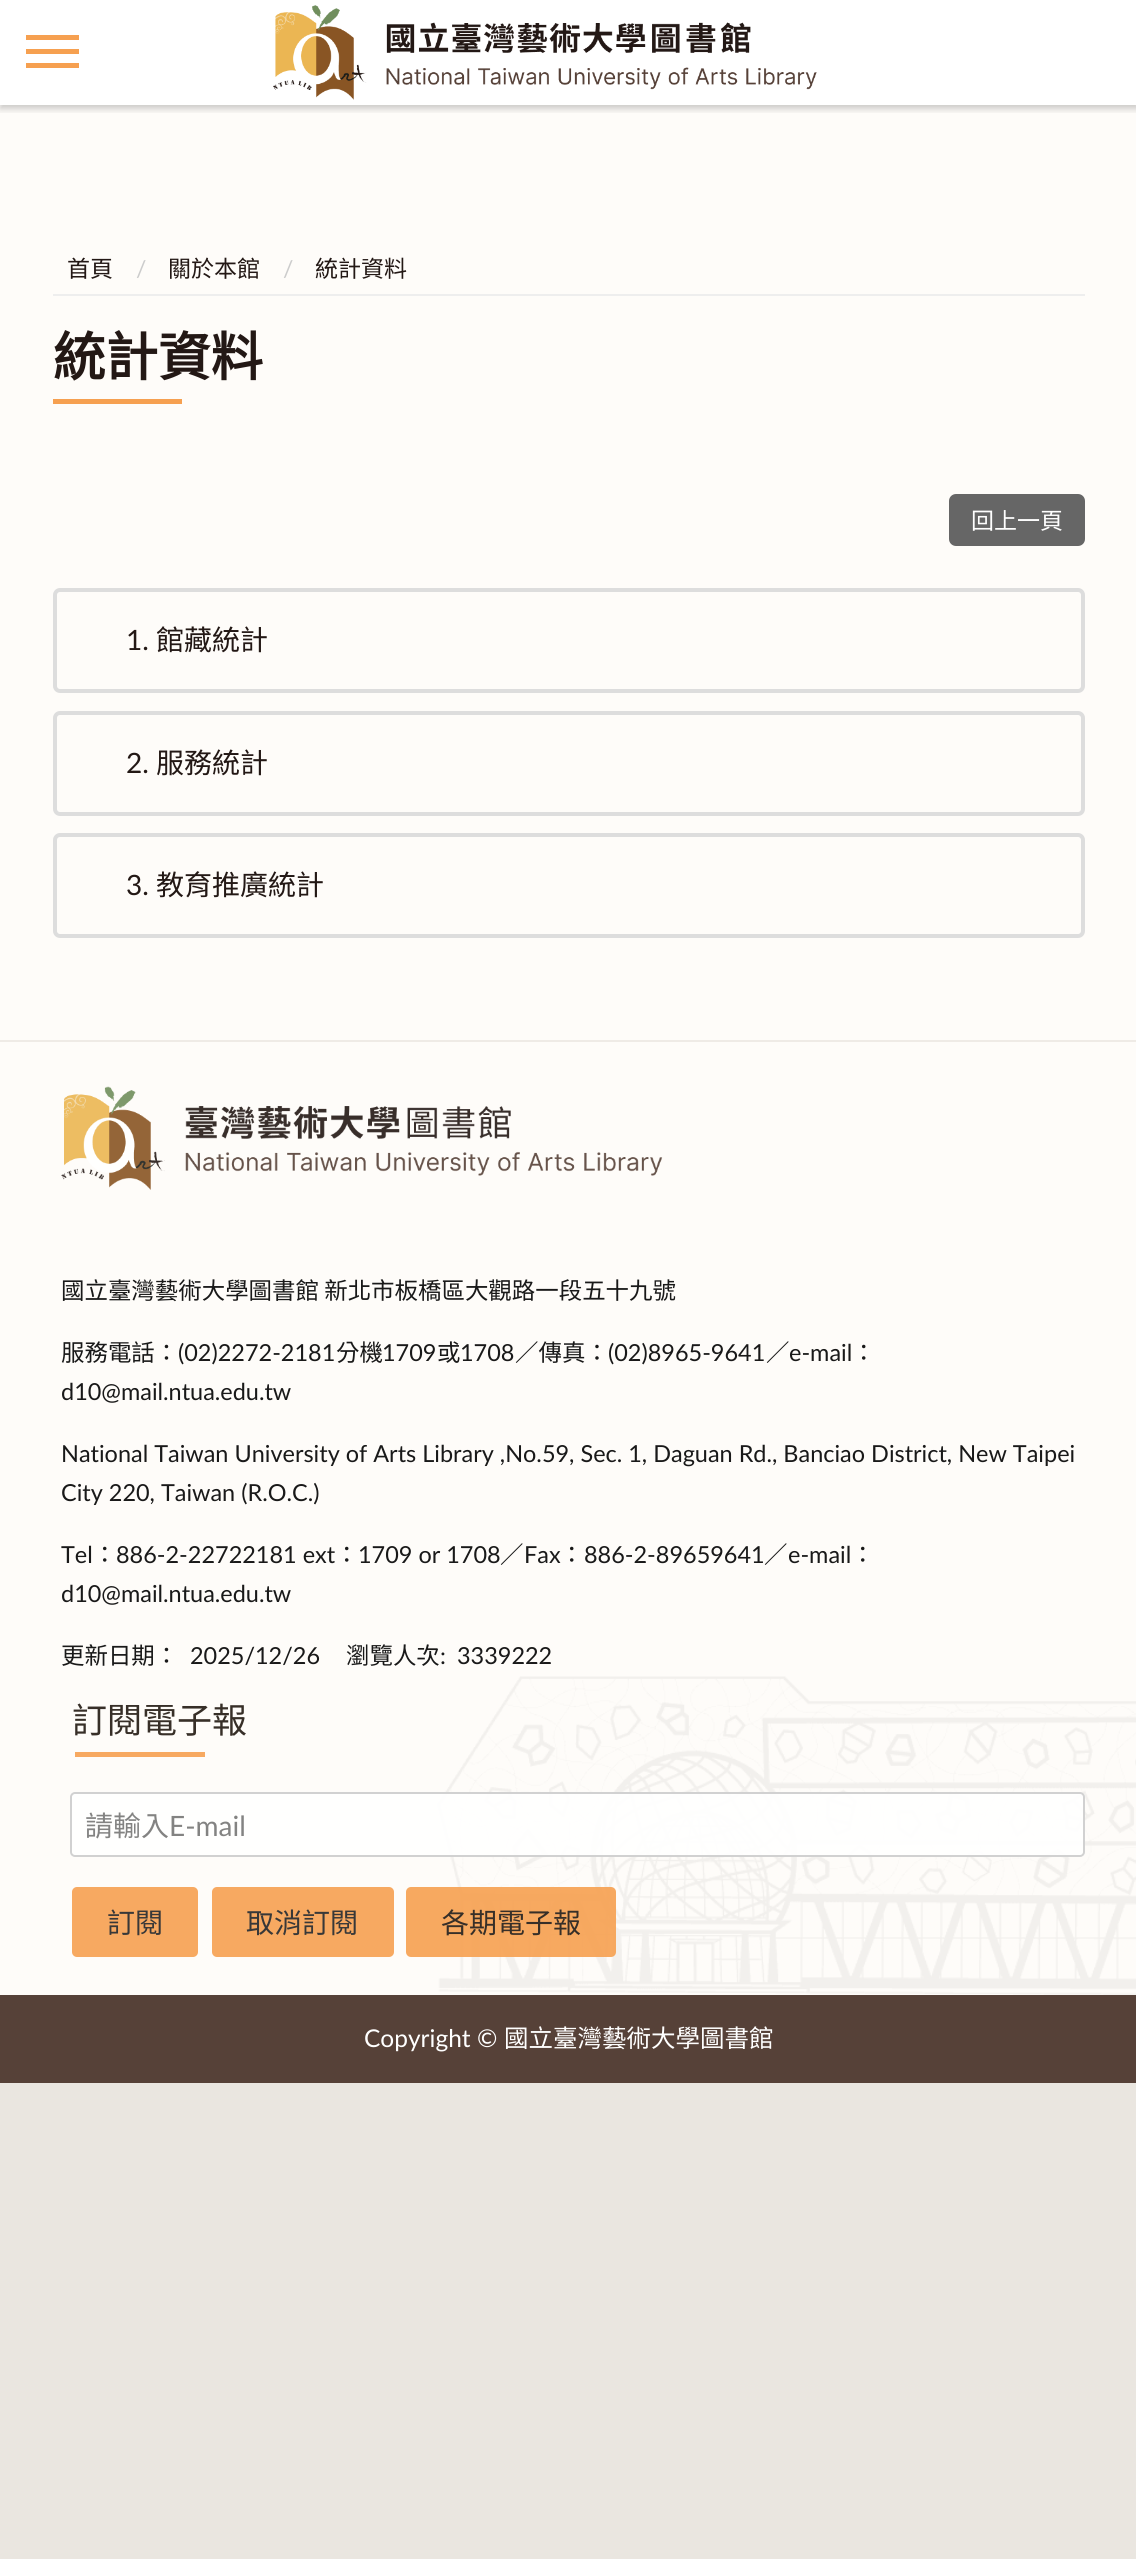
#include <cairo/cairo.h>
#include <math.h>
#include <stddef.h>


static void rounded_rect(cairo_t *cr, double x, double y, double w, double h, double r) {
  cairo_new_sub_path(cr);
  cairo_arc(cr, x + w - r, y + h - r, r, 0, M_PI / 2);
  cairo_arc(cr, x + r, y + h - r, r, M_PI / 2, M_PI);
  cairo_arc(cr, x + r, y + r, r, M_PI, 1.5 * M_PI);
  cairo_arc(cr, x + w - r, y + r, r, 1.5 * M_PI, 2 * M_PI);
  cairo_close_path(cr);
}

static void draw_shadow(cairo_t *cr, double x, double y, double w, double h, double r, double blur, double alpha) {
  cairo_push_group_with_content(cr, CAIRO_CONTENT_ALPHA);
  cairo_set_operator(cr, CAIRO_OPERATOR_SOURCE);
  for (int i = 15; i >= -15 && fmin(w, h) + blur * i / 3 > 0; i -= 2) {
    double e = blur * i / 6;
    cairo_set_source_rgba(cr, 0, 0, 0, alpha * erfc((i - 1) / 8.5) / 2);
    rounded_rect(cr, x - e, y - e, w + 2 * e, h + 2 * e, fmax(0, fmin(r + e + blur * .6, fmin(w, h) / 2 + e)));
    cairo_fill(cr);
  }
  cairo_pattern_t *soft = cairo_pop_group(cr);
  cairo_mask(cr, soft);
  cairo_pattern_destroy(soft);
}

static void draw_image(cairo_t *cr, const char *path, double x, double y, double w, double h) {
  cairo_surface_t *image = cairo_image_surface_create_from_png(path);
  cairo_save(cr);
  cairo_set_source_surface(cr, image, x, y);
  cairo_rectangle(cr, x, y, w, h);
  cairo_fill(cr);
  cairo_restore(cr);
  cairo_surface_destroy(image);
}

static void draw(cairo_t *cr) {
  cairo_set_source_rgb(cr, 234 / 255.0, 230 / 255.0, 224 / 255.0);
  cairo_paint(cr);
  cairo_set_source_rgb(cr, 254 / 255.0, 252 / 255.0, 249 / 255.0);
  cairo_rectangle(cr, 0, 105, 1136, 1890);
  cairo_fill(cr);
  cairo_set_source_rgb(cr, 1, 1, 1);
  cairo_rectangle(cr, 0, 0, 1136, 105);
  cairo_fill(cr);
  cairo_save(cr);
  cairo_rectangle(cr, 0, 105, 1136, 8);
  cairo_clip(cr);
  cairo_set_source_rgb(cr, 0, 0, 0);
  draw_shadow(cr, 0, 4, 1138, 105, 0, 3.5, 0.2);
  cairo_restore(cr);
  draw_image(cr, "images/1.png", 273, 5, 544, 95);
  cairo_set_source_rgb(cr, 246 / 255.0, 160 / 255.0, 80 / 255.0);
  cairo_rectangle(cr, 26, 35, 53, 5);
  cairo_fill(cr);
  cairo_rectangle(cr, 26, 49, 53, 5);
  cairo_fill(cr);
  cairo_rectangle(cr, 26, 63, 53, 5);
  cairo_fill(cr);
  cairo_set_source_rgb(cr, 238 / 255.0, 238 / 255.0, 238 / 255.0);
  cairo_rectangle(cr, 53, 294, 1032, 2);
  cairo_fill(cr);
  cairo_set_source_rgb(cr, 246 / 255.0, 160 / 255.0, 80 / 255.0);
  cairo_rectangle(cr, 53, 399, 129, 5);
  cairo_fill(cr);
  cairo_set_source_rgb(cr, 102 / 255.0, 102 / 255.0, 102 / 255.0);
  rounded_rect(cr, 949, 494, 136, 52, 7);
  cairo_fill(cr);
  rounded_rect(cr, 55, 590, 1028, 101, 5);
  cairo_set_source_rgb(cr, 221 / 255.0, 221 / 255.0, 221 / 255.0);
  cairo_set_line_width(cr, 4);
  cairo_stroke(cr);
  rounded_rect(cr, 55, 713, 1028, 101, 5);
  cairo_stroke(cr);
  rounded_rect(cr, 55, 835, 1028, 101, 5);
  cairo_stroke(cr);
  draw_image(cr, "images/2.png", 437, 1676, 699, 319);
  cairo_set_source_rgb(cr, 239 / 255.0, 235 / 255.0, 230 / 255.0);
  cairo_rectangle(cr, 0, 1040, 1136, 2);
  cairo_fill(cr);
  draw_image(cr, "images/3.png", 61, 1086, 602, 104);
  cairo_set_source_rgb(cr, 247 / 255.0, 169 / 255.0, 97 / 255.0);
  cairo_rectangle(cr, 75, 1752, 130, 5);
  cairo_fill(cr);
  cairo_set_source_rgba(cr, 1, 1, 1, 0.9);
  rounded_rect(cr, 70, 1792, 1015, 65, 5);
  cairo_fill(cr);
  rounded_rect(cr, 71, 1793, 1013, 63, 4);
  cairo_set_source_rgba(cr, 204 / 255.0, 204 / 255.0, 204 / 255.0, 0.9);
  cairo_set_line_width(cr, 2);
  cairo_stroke(cr);
  cairo_set_source_rgb(cr, 247 / 255.0, 169 / 255.0, 97 / 255.0);
  rounded_rect(cr, 72, 1887, 126, 70, 5);
  cairo_fill(cr);
  rounded_rect(cr, 212, 1887, 182, 70, 5);
  cairo_fill(cr);
  cairo_set_source_rgba(cr, 246 / 255.0, 160 / 255.0, 80 / 255.0, 0.9);
  rounded_rect(cr, 406, 1887, 210, 70, 5);
  cairo_fill(cr);
  cairo_set_source_rgb(cr, 86 / 255.0, 65 / 255.0, 56 / 255.0);
  cairo_rectangle(cr, 0, 1995, 1136, 88);
  cairo_fill(cr);
  cairo_select_font_face(cr, "Noto Sans CJK TC", CAIRO_FONT_SLANT_NORMAL, CAIRO_FONT_WEIGHT_NORMAL);
  cairo_set_font_size(cr, 23);
  cairo_set_source_rgb(cr, 35 / 255.0, 24 / 255.0, 21 / 255.0);
  cairo_move_to(cr, 67, 277);
  cairo_show_text(cr, "首頁");
  cairo_select_font_face(cr, "Lato", CAIRO_FONT_SLANT_NORMAL, CAIRO_FONT_WEIGHT_NORMAL);
  cairo_set_source_rgb(cr, 204 / 255.0, 204 / 255.0, 204 / 255.0);
  cairo_move_to(cr, 136, 277);
  cairo_show_text(cr, "/");
  cairo_select_font_face(cr, "Noto Sans CJK TC", CAIRO_FONT_SLANT_NORMAL, CAIRO_FONT_WEIGHT_NORMAL);
  cairo_set_source_rgb(cr, 35 / 255.0, 24 / 255.0, 21 / 255.0);
  cairo_move_to(cr, 168, 277);
  cairo_show_text(cr, "關於本館");
  cairo_select_font_face(cr, "Lato", CAIRO_FONT_SLANT_NORMAL, CAIRO_FONT_WEIGHT_NORMAL);
  cairo_set_source_rgb(cr, 204 / 255.0, 204 / 255.0, 204 / 255.0);
  cairo_move_to(cr, 283, 277);
  cairo_show_text(cr, "/");
  cairo_select_font_face(cr, "Noto Sans CJK TC", CAIRO_FONT_SLANT_NORMAL, CAIRO_FONT_WEIGHT_NORMAL);
  cairo_set_source_rgb(cr, 35 / 255.0, 24 / 255.0, 21 / 255.0);
  cairo_move_to(cr, 315, 277);
  cairo_show_text(cr, "統計資料");
  cairo_select_font_face(cr, "Noto Sans CJK TC", CAIRO_FONT_SLANT_NORMAL, CAIRO_FONT_WEIGHT_BOLD);
  cairo_set_font_size(cr, 52.5);
  cairo_move_to(cr, 53, 376);
  cairo_show_text(cr, "統計資料");
  cairo_select_font_face(cr, "Noto Sans CJK TC", CAIRO_FONT_SLANT_NORMAL, CAIRO_FONT_WEIGHT_NORMAL);
  cairo_set_font_size(cr, 23);
  cairo_set_source_rgb(cr, 1, 1, 1);
  cairo_move_to(cr, 971, 529);
  cairo_show_text(cr, "回上一頁");
  cairo_select_font_face(cr, "Lato", CAIRO_FONT_SLANT_NORMAL, CAIRO_FONT_WEIGHT_NORMAL);
  cairo_set_font_size(cr, 28);
  cairo_set_source_rgb(cr, 35 / 255.0, 24 / 255.0, 21 / 255.0);
  cairo_move_to(cr, 126, 650);
  cairo_show_text(cr, "1.");
  cairo_select_font_face(cr, "Noto Sans CJK TC", CAIRO_FONT_SLANT_NORMAL, CAIRO_FONT_WEIGHT_NORMAL);
  cairo_move_to(cr, 156, 650);
  cairo_show_text(cr, "館藏統計");
  cairo_select_font_face(cr, "Lato", CAIRO_FONT_SLANT_NORMAL, CAIRO_FONT_WEIGHT_NORMAL);
  cairo_move_to(cr, 126, 773);
  cairo_show_text(cr, "2.");
  cairo_select_font_face(cr, "Noto Sans CJK TC", CAIRO_FONT_SLANT_NORMAL, CAIRO_FONT_WEIGHT_NORMAL);
  cairo_move_to(cr, 156, 773);
  cairo_show_text(cr, "服務統計");
  cairo_select_font_face(cr, "Lato", CAIRO_FONT_SLANT_NORMAL, CAIRO_FONT_WEIGHT_NORMAL);
  cairo_move_to(cr, 126, 895);
  cairo_show_text(cr, "3.");
  cairo_select_font_face(cr, "Noto Sans CJK TC", CAIRO_FONT_SLANT_NORMAL, CAIRO_FONT_WEIGHT_NORMAL);
  cairo_move_to(cr, 156, 895);
  cairo_show_text(cr, "教育推廣統計");
  cairo_set_font_size(cr, 23.45);
  cairo_set_source_rgb(cr, 25 / 255.0, 25 / 255.0, 25 / 255.0);
  cairo_move_to(cr, 61, 1299);
  cairo_show_text(cr, "國立臺灣藝術大學圖書館 新北市板橋區大觀路一段五十九號");
  cairo_move_to(cr, 61, 1361);
  cairo_show_text(cr, "服務電話：");
  cairo_select_font_face(cr, "Lato", CAIRO_FONT_SLANT_NORMAL, CAIRO_FONT_WEIGHT_NORMAL);
  cairo_move_to(cr, 178, 1361);
  cairo_show_text(cr, "(02)2272-2181");
  cairo_select_font_face(cr, "Noto Sans CJK TC", CAIRO_FONT_SLANT_NORMAL, CAIRO_FONT_WEIGHT_NORMAL);
  cairo_move_to(cr, 336, 1361);
  cairo_show_text(cr, "分機");
  cairo_select_font_face(cr, "Lato", CAIRO_FONT_SLANT_NORMAL, CAIRO_FONT_WEIGHT_NORMAL);
  cairo_move_to(cr, 382, 1361);
  cairo_show_text(cr, "1709");
  cairo_select_font_face(cr, "Noto Sans CJK TC", CAIRO_FONT_SLANT_NORMAL, CAIRO_FONT_WEIGHT_NORMAL);
  cairo_move_to(cr, 437, 1361);
  cairo_show_text(cr, "或");
  cairo_select_font_face(cr, "Lato", CAIRO_FONT_SLANT_NORMAL, CAIRO_FONT_WEIGHT_NORMAL);
  cairo_move_to(cr, 460, 1361);
  cairo_show_text(cr, "1708");
  cairo_select_font_face(cr, "Noto Sans CJK TC", CAIRO_FONT_SLANT_NORMAL, CAIRO_FONT_WEIGHT_NORMAL);
  cairo_move_to(cr, 515, 1361);
  cairo_show_text(cr, "／傳真：");
  cairo_select_font_face(cr, "Lato", CAIRO_FONT_SLANT_NORMAL, CAIRO_FONT_WEIGHT_NORMAL);
  cairo_move_to(cr, 608, 1361);
  cairo_show_text(cr, "(02)8965-9641");
  cairo_select_font_face(cr, "Noto Sans CJK TC", CAIRO_FONT_SLANT_NORMAL, CAIRO_FONT_WEIGHT_NORMAL);
  cairo_move_to(cr, 766, 1361);
  cairo_show_text(cr, "／");
  cairo_select_font_face(cr, "Lato", CAIRO_FONT_SLANT_NORMAL, CAIRO_FONT_WEIGHT_NORMAL);
  cairo_move_to(cr, 789, 1361);
  cairo_show_text(cr, "e-mail");
  cairo_select_font_face(cr, "Noto Sans CJK TC", CAIRO_FONT_SLANT_NORMAL, CAIRO_FONT_WEIGHT_NORMAL);
  cairo_move_to(cr, 852, 1361);
  cairo_show_text(cr, "：");
  cairo_select_font_face(cr, "Lato", CAIRO_FONT_SLANT_NORMAL, CAIRO_FONT_WEIGHT_NORMAL);
  cairo_move_to(cr, 61, 1400);
  cairo_show_text(cr, "d10@mail.ntua.edu.tw");
  cairo_move_to(cr, 61, 1462);
  cairo_show_text(cr, "National Taiwan University of Arts Library ,No.59, Sec. 1, Daguan Rd., Banciao District, New Taipei");
  cairo_move_to(cr, 61, 1501);
  cairo_show_text(cr, "City 220, Taiwan (R.O.C.)");
  cairo_move_to(cr, 61, 1563);
  cairo_show_text(cr, "Tel");
  cairo_select_font_face(cr, "Noto Sans CJK TC", CAIRO_FONT_SLANT_NORMAL, CAIRO_FONT_WEIGHT_NORMAL);
  cairo_move_to(cr, 93, 1563);
  cairo_show_text(cr, "：");
  cairo_select_font_face(cr, "Lato", CAIRO_FONT_SLANT_NORMAL, CAIRO_FONT_WEIGHT_NORMAL);
  cairo_move_to(cr, 116, 1563);
  cairo_show_text(cr, "886-2-22722181 ext");
  cairo_select_font_face(cr, "Noto Sans CJK TC", CAIRO_FONT_SLANT_NORMAL, CAIRO_FONT_WEIGHT_NORMAL);
  cairo_move_to(cr, 335, 1563);
  cairo_show_text(cr, "：");
  cairo_select_font_face(cr, "Lato", CAIRO_FONT_SLANT_NORMAL, CAIRO_FONT_WEIGHT_NORMAL);
  cairo_move_to(cr, 358, 1563);
  cairo_show_text(cr, "1709 or 1708");
  cairo_select_font_face(cr, "Noto Sans CJK TC", CAIRO_FONT_SLANT_NORMAL, CAIRO_FONT_WEIGHT_NORMAL);
  cairo_move_to(cr, 500, 1563);
  cairo_show_text(cr, "／");
  cairo_select_font_face(cr, "Lato", CAIRO_FONT_SLANT_NORMAL, CAIRO_FONT_WEIGHT_NORMAL);
  cairo_move_to(cr, 524, 1563);
  cairo_show_text(cr, "Fax");
  cairo_select_font_face(cr, "Noto Sans CJK TC", CAIRO_FONT_SLANT_NORMAL, CAIRO_FONT_WEIGHT_NORMAL);
  cairo_move_to(cr, 560, 1563);
  cairo_show_text(cr, "：");
  cairo_select_font_face(cr, "Lato", CAIRO_FONT_SLANT_NORMAL, CAIRO_FONT_WEIGHT_NORMAL);
  cairo_move_to(cr, 584, 1563);
  cairo_show_text(cr, "886-2-89659641");
  cairo_select_font_face(cr, "Noto Sans CJK TC", CAIRO_FONT_SLANT_NORMAL, CAIRO_FONT_WEIGHT_NORMAL);
  cairo_move_to(cr, 764, 1563);
  cairo_show_text(cr, "／");
  cairo_select_font_face(cr, "Lato", CAIRO_FONT_SLANT_NORMAL, CAIRO_FONT_WEIGHT_NORMAL);
  cairo_move_to(cr, 788, 1563);
  cairo_show_text(cr, "e-mail");
  cairo_select_font_face(cr, "Noto Sans CJK TC", CAIRO_FONT_SLANT_NORMAL, CAIRO_FONT_WEIGHT_NORMAL);
  cairo_move_to(cr, 851, 1563);
  cairo_show_text(cr, "：");
  cairo_select_font_face(cr, "Lato", CAIRO_FONT_SLANT_NORMAL, CAIRO_FONT_WEIGHT_NORMAL);
  cairo_move_to(cr, 61, 1602);
  cairo_show_text(cr, "d10@mail.ntua.edu.tw");
  cairo_select_font_face(cr, "Noto Sans CJK TC", CAIRO_FONT_SLANT_NORMAL, CAIRO_FONT_WEIGHT_NORMAL);
  cairo_move_to(cr, 61, 1664);
  cairo_show_text(cr, "更新日期：");
  cairo_select_font_face(cr, "Lato", CAIRO_FONT_SLANT_NORMAL, CAIRO_FONT_WEIGHT_NORMAL);
  cairo_move_to(cr, 190, 1664);
  cairo_show_text(cr, "2025/12/26");
  cairo_select_font_face(cr, "Noto Sans CJK TC", CAIRO_FONT_SLANT_NORMAL, CAIRO_FONT_WEIGHT_NORMAL);
  cairo_move_to(cr, 346, 1664);
  cairo_show_text(cr, "瀏覽人次");
  cairo_select_font_face(cr, "Lato", CAIRO_FONT_SLANT_NORMAL, CAIRO_FONT_WEIGHT_NORMAL);
  cairo_move_to(cr, 440, 1664);
  cairo_show_text(cr, ":");
  cairo_move_to(cr, 457, 1664);
  cairo_show_text(cr, "3339222");
  cairo_select_font_face(cr, "Noto Sans CJK TC", CAIRO_FONT_SLANT_NORMAL, CAIRO_FONT_WEIGHT_NORMAL);
  cairo_set_font_size(cr, 35);
  cairo_set_source_rgb(cr, 55 / 255.0, 47 / 255.0, 40 / 255.0);
  cairo_move_to(cr, 72, 1733);
  cairo_show_text(cr, "訂閱電子報");
  cairo_set_font_size(cr, 28);
  cairo_set_source_rgb(cr, 131 / 255.0, 131 / 255.0, 130 / 255.0);
  cairo_move_to(cr, 85, 1836);
  cairo_show_text(cr, "請輸入");
  cairo_select_font_face(cr, "Lato", CAIRO_FONT_SLANT_NORMAL, CAIRO_FONT_WEIGHT_NORMAL);
  cairo_move_to(cr, 169, 1836);
  cairo_show_text(cr, "E-mail");
  cairo_select_font_face(cr, "Noto Sans CJK TC", CAIRO_FONT_SLANT_NORMAL, CAIRO_FONT_WEIGHT_NORMAL);
  cairo_set_source_rgb(cr, 56 / 255.0, 56 / 255.0, 56 / 255.0);
  cairo_move_to(cr, 107, 1933);
  cairo_show_text(cr, "訂閱");
  cairo_move_to(cr, 246, 1933);
  cairo_show_text(cr, "取消訂閱");
  cairo_set_source_rgb(cr, 55 / 255.0, 47 / 255.0, 40 / 255.0);
  cairo_move_to(cr, 441, 1933);
  cairo_show_text(cr, "各期電子報");
  cairo_select_font_face(cr, "Lato", CAIRO_FONT_SLANT_NORMAL, CAIRO_FONT_WEIGHT_NORMAL);
  cairo_set_font_size(cr, 24.5);
  cairo_set_source_rgb(cr, 1, 1, 1);
  cairo_move_to(cr, 364, 2047);
  cairo_show_text(cr, "Copyright ©");
  cairo_select_font_face(cr, "Noto Sans CJK TC", CAIRO_FONT_SLANT_NORMAL, CAIRO_FONT_WEIGHT_NORMAL);
  cairo_move_to(cr, 504, 2047);
  cairo_show_text(cr, "國立臺灣藝術大學圖書館");
}

int main(void) {
  cairo_surface_t *surface = cairo_image_surface_create(CAIRO_FORMAT_RGB24, 1136, 2559);
  cairo_t *cr = cairo_create(surface);
  cairo_font_options_t *options = cairo_font_options_create();
  cairo_font_options_set_hint_metrics(options, CAIRO_HINT_METRICS_OFF);
  cairo_font_options_set_hint_style(options, CAIRO_HINT_STYLE_NONE);
  cairo_set_font_options(cr, options);
  cairo_set_miter_limit(cr, 4);
  draw(cr);
  cairo_surface_write_to_png(surface, "out.png");
  cairo_font_options_destroy(options);
  cairo_destroy(cr);
  cairo_surface_destroy(surface);
  return 0;
}
